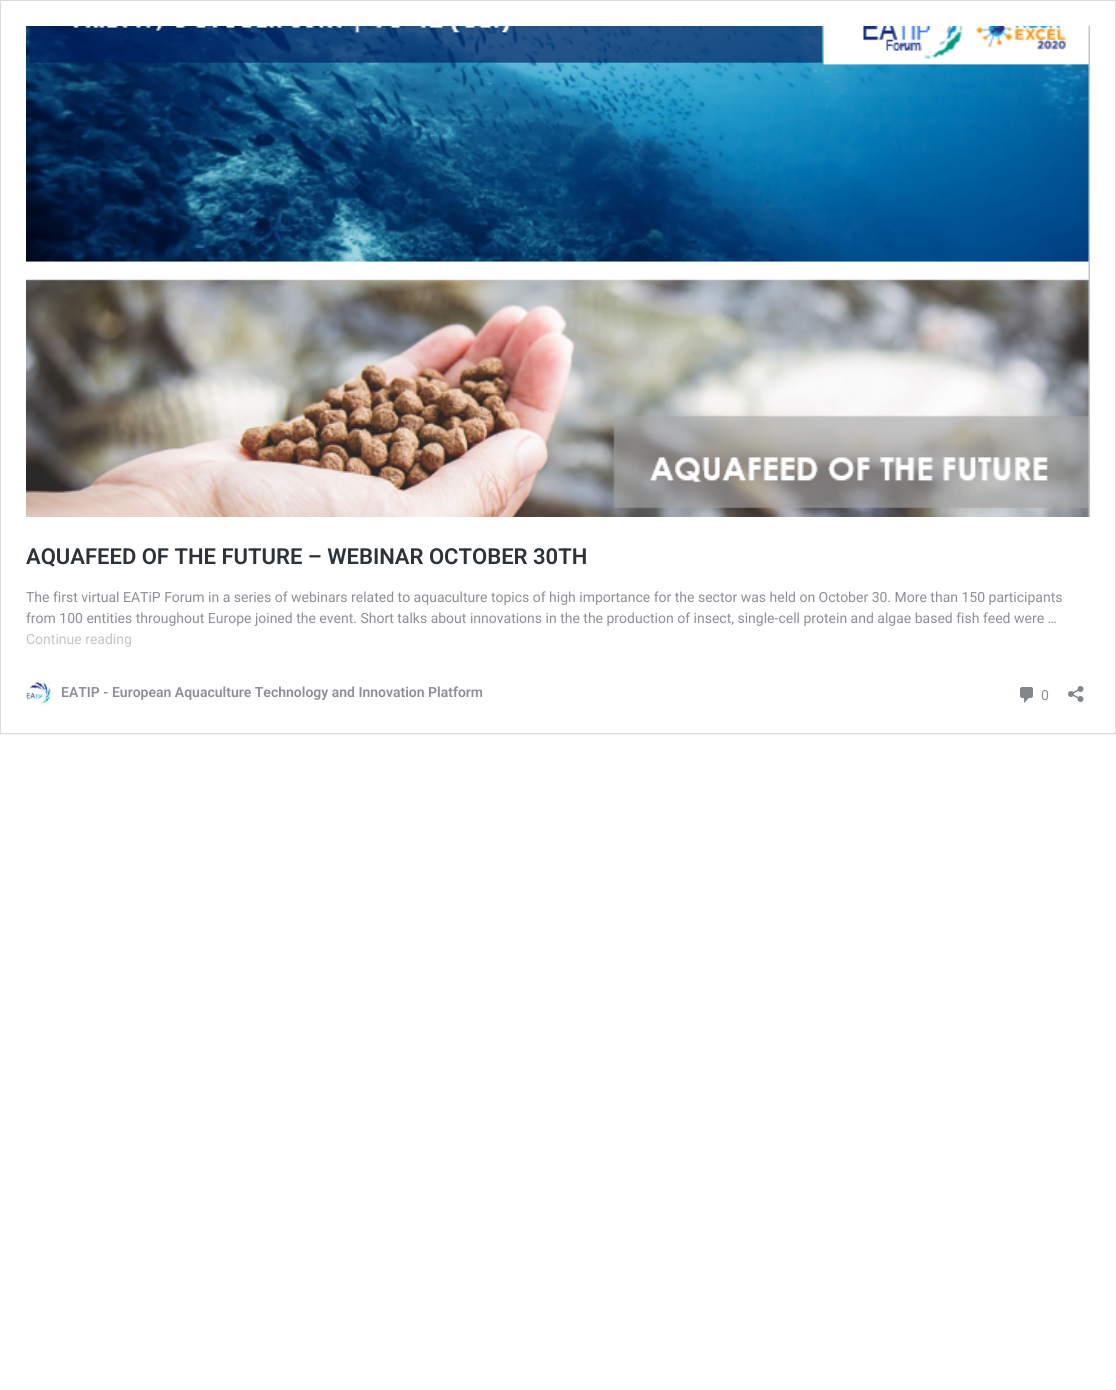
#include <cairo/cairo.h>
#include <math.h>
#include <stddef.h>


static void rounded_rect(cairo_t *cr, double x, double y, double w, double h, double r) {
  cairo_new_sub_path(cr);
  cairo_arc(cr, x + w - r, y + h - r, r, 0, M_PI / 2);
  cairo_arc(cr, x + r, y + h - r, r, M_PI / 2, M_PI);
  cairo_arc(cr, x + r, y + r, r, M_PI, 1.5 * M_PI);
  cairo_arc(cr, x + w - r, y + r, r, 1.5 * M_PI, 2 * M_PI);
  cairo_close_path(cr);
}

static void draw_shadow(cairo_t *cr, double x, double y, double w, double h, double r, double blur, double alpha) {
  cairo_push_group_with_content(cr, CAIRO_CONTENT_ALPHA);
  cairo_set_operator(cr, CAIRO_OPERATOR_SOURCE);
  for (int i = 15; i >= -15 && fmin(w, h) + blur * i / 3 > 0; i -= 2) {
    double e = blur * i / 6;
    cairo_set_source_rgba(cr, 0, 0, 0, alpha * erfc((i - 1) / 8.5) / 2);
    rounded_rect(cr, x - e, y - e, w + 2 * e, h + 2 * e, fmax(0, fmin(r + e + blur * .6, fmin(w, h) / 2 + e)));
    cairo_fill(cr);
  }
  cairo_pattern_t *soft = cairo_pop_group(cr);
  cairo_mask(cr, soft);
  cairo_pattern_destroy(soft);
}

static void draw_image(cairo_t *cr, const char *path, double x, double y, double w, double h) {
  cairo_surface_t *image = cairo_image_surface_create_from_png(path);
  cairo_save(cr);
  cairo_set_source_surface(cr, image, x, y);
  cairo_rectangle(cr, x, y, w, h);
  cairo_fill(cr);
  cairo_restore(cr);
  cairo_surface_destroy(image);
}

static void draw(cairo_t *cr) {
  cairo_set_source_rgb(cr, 1, 1, 1);
  cairo_paint(cr);
  cairo_save(cr);
  cairo_rectangle(cr, 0, 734, 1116, 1);
  cairo_clip(cr);
  cairo_set_source_rgb(cr, 0, 0, 0);
  draw_shadow(cr, 0, 1, 1116, 734, 0, 0.5, 0.05);
  cairo_restore(cr);
  cairo_rectangle(cr, 0.5, 0.5, 1115, 733);
  cairo_set_source_rgb(cr, 220 / 255.0, 220 / 255.0, 222 / 255.0);
  cairo_set_line_width(cr, 1);
  cairo_stroke(cr);
  draw_image(cr, "images/1.png", 26, 26, 1064, 491);
  draw_image(cr, "images/2.png", 26, 680, 25, 26);
  draw_image(cr, "images/3.png", 1020, 687, 13, 16);
  draw_image(cr, "images/4.png", 1068, 686, 16, 16);
  cairo_select_font_face(cr, "Roboto SemiBold", CAIRO_FONT_SLANT_NORMAL, CAIRO_FONT_WEIGHT_NORMAL);
  cairo_set_font_size(cr, 22);
  cairo_set_source_rgb(cr, 44 / 255.0, 51 / 255.0, 56 / 255.0);
  cairo_move_to(cr, 26, 564);
  cairo_show_text(cr, "AQUAFEED OF THE FUTURE – WEBINAR OCTOBER 30TH");
  cairo_select_font_face(cr, "Roboto", CAIRO_FONT_SLANT_NORMAL, CAIRO_FONT_WEIGHT_NORMAL);
  cairo_set_font_size(cr, 14);
  cairo_set_source_rgb(cr, 140 / 255.0, 143 / 255.0, 148 / 255.0);
  cairo_move_to(cr, 26, 602);
  cairo_show_text(cr, "The first virtual EATiP Forum in a series of webinars related to aquaculture topics of high importance for the sector was held on October 30. More than 150 participants");
  cairo_move_to(cr, 26, 623);
  cairo_show_text(cr, "from 100 entities throughout Europe joined the event. Short talks about innovations in the the production of insect, single-cell protein and algae based fish feed were …");
  cairo_set_source_rgb(cr, 195 / 255.0, 196 / 255.0, 199 / 255.0);
  cairo_move_to(cr, 26, 644);
  cairo_show_text(cr, "Continue reading");
  cairo_select_font_face(cr, "Roboto SemiBold", CAIRO_FONT_SLANT_NORMAL, CAIRO_FONT_WEIGHT_NORMAL);
  cairo_set_source_rgb(cr, 140 / 255.0, 143 / 255.0, 148 / 255.0);
  cairo_move_to(cr, 61, 697);
  cairo_show_text(cr, "EATIP - European Aquaculture Technology and Innovation Platform");
  cairo_select_font_face(cr, "Roboto", CAIRO_FONT_SLANT_NORMAL, CAIRO_FONT_WEIGHT_NORMAL);
  cairo_move_to(cr, 1041, 700);
  cairo_show_text(cr, "0");
}

int main(void) {
  cairo_surface_t *surface = cairo_image_surface_create(CAIRO_FORMAT_RGB24, 1116, 1390);
  cairo_t *cr = cairo_create(surface);
  cairo_font_options_t *options = cairo_font_options_create();
  cairo_font_options_set_hint_metrics(options, CAIRO_HINT_METRICS_OFF);
  cairo_font_options_set_hint_style(options, CAIRO_HINT_STYLE_NONE);
  cairo_set_font_options(cr, options);
  cairo_set_miter_limit(cr, 4);
  draw(cr);
  cairo_surface_write_to_png(surface, "out.png");
  cairo_font_options_destroy(options);
  cairo_destroy(cr);
  cairo_surface_destroy(surface);
  return 0;
}
